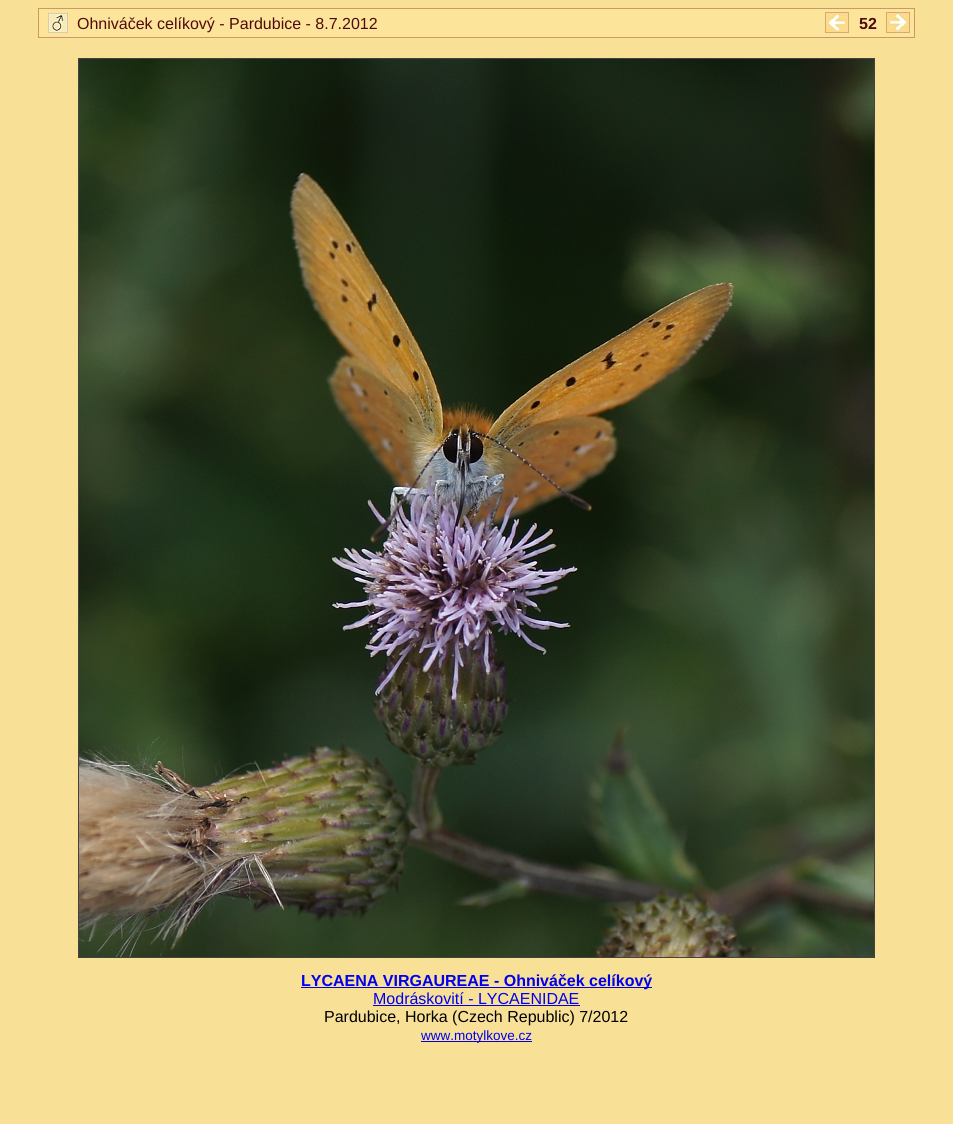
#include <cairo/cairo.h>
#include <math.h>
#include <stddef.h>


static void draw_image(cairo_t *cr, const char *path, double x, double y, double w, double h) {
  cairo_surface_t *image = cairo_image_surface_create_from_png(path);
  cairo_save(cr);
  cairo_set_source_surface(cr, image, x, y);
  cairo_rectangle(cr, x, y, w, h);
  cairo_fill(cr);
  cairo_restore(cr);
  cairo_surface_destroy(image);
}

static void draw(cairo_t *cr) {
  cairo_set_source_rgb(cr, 248 / 255.0, 225 / 255.0, 150 / 255.0);
  cairo_paint(cr);
  cairo_rectangle(cr, 38.5, 8.5, 876, 29);
  cairo_set_source_rgb(cr, 204 / 255.0, 153 / 255.0, 102 / 255.0);
  cairo_set_line_width(cr, 1);
  cairo_stroke(cr);
  cairo_set_source_rgb(cr, 252 / 255.0, 229 / 255.0, 154 / 255.0);
  cairo_rectangle(cr, 39, 9, 875, 28);
  cairo_fill(cr);
  draw_image(cr, "images/1.png", 48, 13, 20, 20);
  draw_image(cr, "images/2.png", 825, 12, 24, 21);
  draw_image(cr, "images/3.png", 886, 12, 24, 21);
  draw_image(cr, "images/4.png", 78, 58, 797, 900);
  cairo_set_source_rgb(cr, 0, 0, 238 / 255.0);
  cairo_rectangle(cr, 301, 987, 351, 1);
  cairo_fill(cr);
  cairo_rectangle(cr, 373, 1005, 207, 1);
  cairo_fill(cr);
  cairo_rectangle(cr, 421, 1041, 111, 1);
  cairo_fill(cr);
  cairo_select_font_face(cr, "Liberation Sans", CAIRO_FONT_SLANT_NORMAL, CAIRO_FONT_WEIGHT_NORMAL);
  cairo_set_font_size(cr, 16);
  cairo_set_source_rgb(cr, 80 / 255.0, 10 / 255.0, 10 / 255.0);
  cairo_move_to(cr, 77, 29);
  cairo_show_text(cr, "Ohniváček celíkový - Pardubice - 8.7.2012");
  cairo_select_font_face(cr, "Liberation Sans", CAIRO_FONT_SLANT_NORMAL, CAIRO_FONT_WEIGHT_BOLD);
  cairo_move_to(cr, 859, 29);
  cairo_show_text(cr, "52");
  cairo_set_source_rgb(cr, 0, 0, 238 / 255.0);
  cairo_move_to(cr, 301, 986);
  cairo_show_text(cr, "LYCAENA VIRGAUREAE - Ohniváček celíkový");
  cairo_select_font_face(cr, "Liberation Sans", CAIRO_FONT_SLANT_NORMAL, CAIRO_FONT_WEIGHT_NORMAL);
  cairo_move_to(cr, 373, 1004);
  cairo_show_text(cr, "Modráskovití - LYCAENIDAE");
  cairo_set_source_rgb(cr, 0, 0, 0);
  cairo_move_to(cr, 324, 1022);
  cairo_show_text(cr, "Pardubice, Horka (Czech Republic) 7/2012");
  cairo_set_font_size(cr, 13.5);
  cairo_set_source_rgb(cr, 0, 0, 238 / 255.0);
  cairo_move_to(cr, 421, 1040);
  cairo_show_text(cr, "www.motylkove.cz");
}

int main(void) {
  cairo_surface_t *surface = cairo_image_surface_create(CAIRO_FORMAT_RGB24, 953, 1124);
  cairo_t *cr = cairo_create(surface);
  cairo_font_options_t *options = cairo_font_options_create();
  cairo_font_options_set_hint_metrics(options, CAIRO_HINT_METRICS_OFF);
  cairo_font_options_set_hint_style(options, CAIRO_HINT_STYLE_NONE);
  cairo_set_font_options(cr, options);
  cairo_set_miter_limit(cr, 4);
  draw(cr);
  cairo_surface_write_to_png(surface, "out.png");
  cairo_font_options_destroy(options);
  cairo_destroy(cr);
  cairo_surface_destroy(surface);
  return 0;
}
